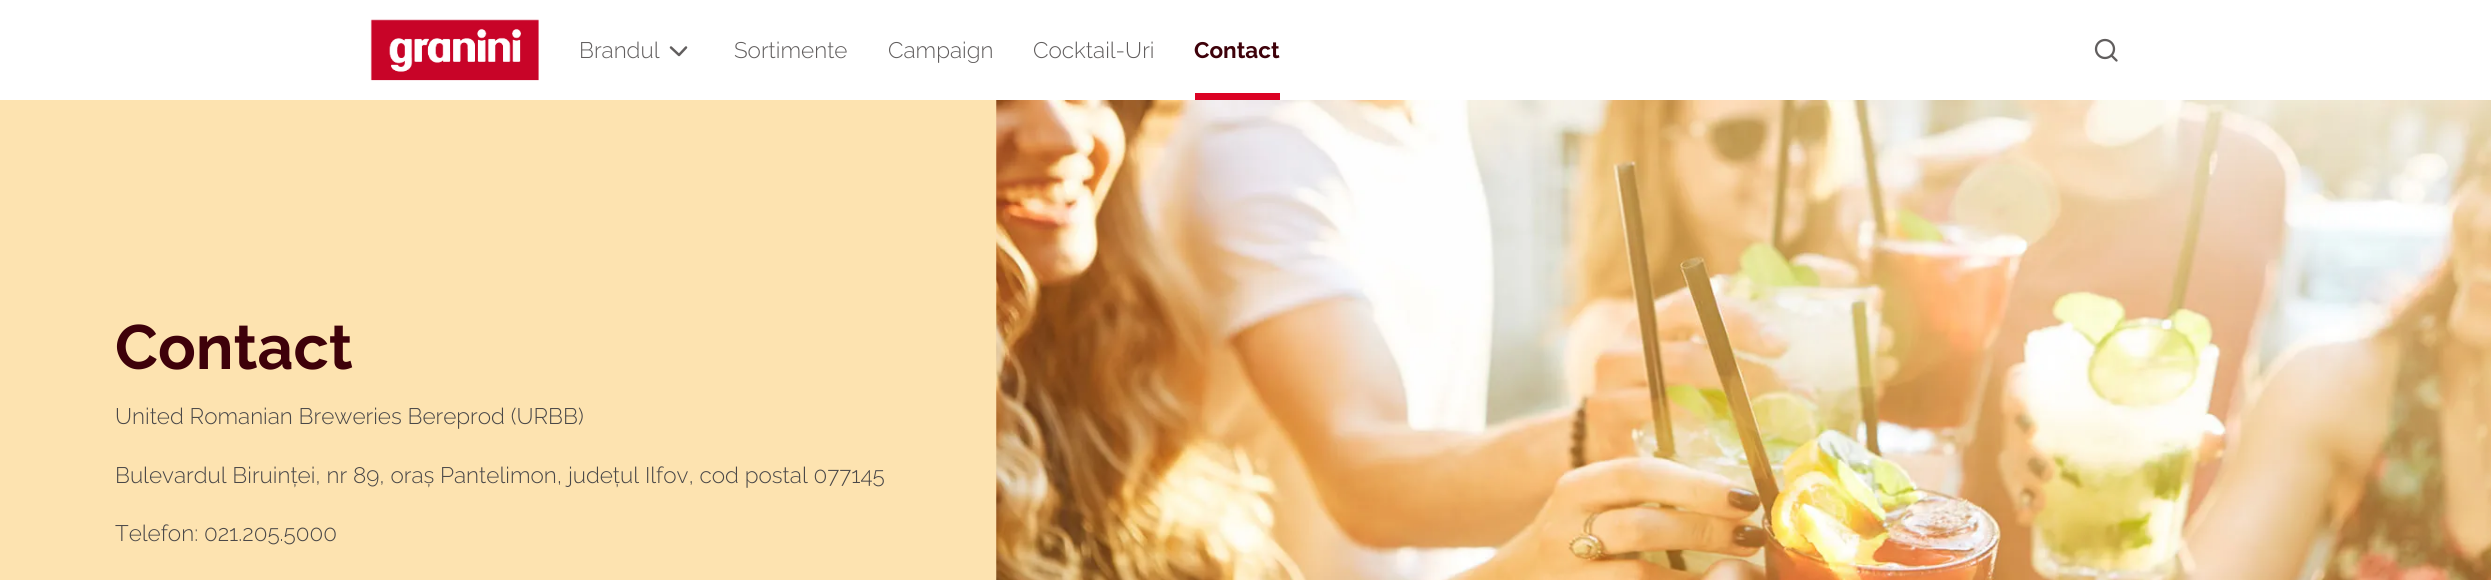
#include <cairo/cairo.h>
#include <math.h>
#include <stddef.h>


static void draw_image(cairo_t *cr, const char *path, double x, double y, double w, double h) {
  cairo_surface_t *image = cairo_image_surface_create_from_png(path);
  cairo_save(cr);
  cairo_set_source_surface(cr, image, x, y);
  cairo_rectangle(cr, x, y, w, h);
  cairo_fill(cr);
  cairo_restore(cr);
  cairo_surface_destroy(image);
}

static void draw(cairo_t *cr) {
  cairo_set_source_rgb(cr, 253 / 255.0, 227 / 255.0, 176 / 255.0);
  cairo_paint(cr);
  cairo_set_source_rgb(cr, 1, 1, 1);
  cairo_rectangle(cr, 0, 0, 2491, 100);
  cairo_fill(cr);
  draw_image(cr, "images/1.png", 370, 19, 169, 62);
  cairo_new_path(cr);
  cairo_move_to(cr, 671, 47.5);
  cairo_line_to(cr, 679, 55);
  cairo_line_to(cr, 686, 47.5);
  cairo_set_source_rgb(cr, 97 / 255.0, 94 / 255.0, 94 / 255.0);
  cairo_set_line_width(cr, 2.5);
  cairo_set_line_cap(cr, CAIRO_LINE_CAP_ROUND);
  cairo_set_line_join(cr, CAIRO_LINE_JOIN_ROUND);
  cairo_stroke(cr);
  cairo_set_source_rgb(cr, 219 / 255.0, 2 / 255.0, 36 / 255.0);
  cairo_rectangle(cr, 1195, 93, 85, 7);
  cairo_fill(cr);
  cairo_arc(cr, 2105, 49, 9, 0, 2 * M_PI);
  cairo_set_source_rgb(cr, 97 / 255.0, 94 / 255.0, 94 / 255.0);
  cairo_set_line_width(cr, 2.3);
  cairo_set_line_cap(cr, CAIRO_LINE_CAP_BUTT);
  cairo_set_line_join(cr, CAIRO_LINE_JOIN_MITER);
  cairo_stroke(cr);
  cairo_new_path(cr);
  cairo_move_to(cr, 2116.5, 60.5);
  cairo_line_to(cr, 2111.5, 55.5);
  cairo_set_line_cap(cr, CAIRO_LINE_CAP_ROUND);
  cairo_set_line_join(cr, CAIRO_LINE_JOIN_ROUND);
  cairo_stroke(cr);
  draw_image(cr, "images/2.png", 996, 100, 1495, 480);
  cairo_select_font_face(cr, "Raleway Light", CAIRO_FONT_SLANT_NORMAL, CAIRO_FONT_WEIGHT_NORMAL);
  cairo_set_font_size(cr, 22.5);
  cairo_move_to(cr, 579, 58);
  cairo_show_text(cr, "Brandul");
  cairo_move_to(cr, 734, 58);
  cairo_show_text(cr, "Sortimente");
  cairo_move_to(cr, 888, 58);
  cairo_show_text(cr, "Campaign");
  cairo_move_to(cr, 1033, 58);
  cairo_show_text(cr, "Cocktail-Uri");
  cairo_select_font_face(cr, "Raleway", CAIRO_FONT_SLANT_NORMAL, CAIRO_FONT_WEIGHT_BOLD);
  cairo_set_source_rgb(cr, 62 / 255.0, 1 / 255.0, 10 / 255.0);
  cairo_move_to(cr, 1194, 58);
  cairo_show_text(cr, "Contact");
  cairo_set_font_size(cr, 62.5);
  cairo_move_to(cr, 115, 369);
  cairo_show_text(cr, "Contact");
  cairo_select_font_face(cr, "Raleway Light", CAIRO_FONT_SLANT_NORMAL, CAIRO_FONT_WEIGHT_NORMAL);
  cairo_set_font_size(cr, 22.5);
  cairo_set_source_rgb(cr, 74 / 255.0, 72 / 255.0, 72 / 255.0);
  cairo_move_to(cr, 115, 424);
  cairo_show_text(cr, "United Romanian Breweries Bereprod (URBB)");
  cairo_move_to(cr, 115, 483);
  cairo_show_text(cr, "Bulevardul Biruinței, nr 89, oraș Pantelimon, județul Ilfov, cod postal 077145");
  cairo_move_to(cr, 115, 541);
  cairo_show_text(cr, "Telefon: 021.205.5000");
}

int main(void) {
  cairo_surface_t *surface = cairo_image_surface_create(CAIRO_FORMAT_RGB24, 2491, 580);
  cairo_t *cr = cairo_create(surface);
  cairo_font_options_t *options = cairo_font_options_create();
  cairo_font_options_set_hint_metrics(options, CAIRO_HINT_METRICS_OFF);
  cairo_font_options_set_hint_style(options, CAIRO_HINT_STYLE_NONE);
  cairo_set_font_options(cr, options);
  cairo_set_miter_limit(cr, 4);
  draw(cr);
  cairo_surface_write_to_png(surface, "out.png");
  cairo_font_options_destroy(options);
  cairo_destroy(cr);
  cairo_surface_destroy(surface);
  return 0;
}
